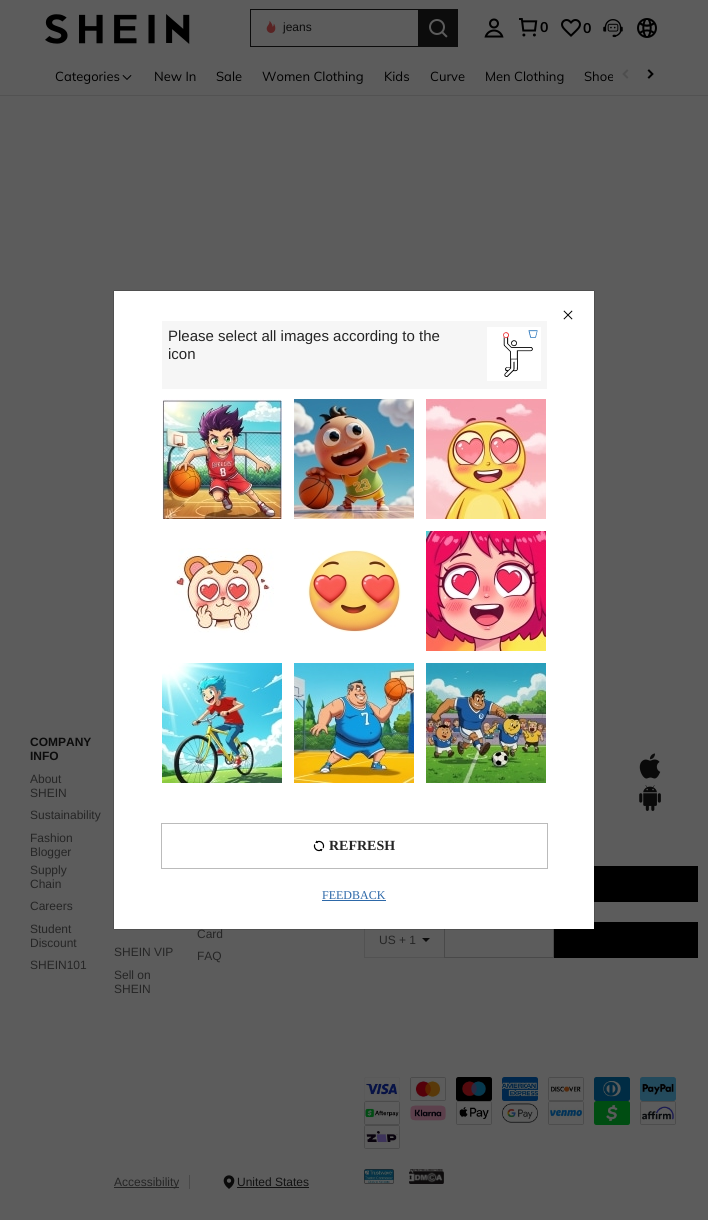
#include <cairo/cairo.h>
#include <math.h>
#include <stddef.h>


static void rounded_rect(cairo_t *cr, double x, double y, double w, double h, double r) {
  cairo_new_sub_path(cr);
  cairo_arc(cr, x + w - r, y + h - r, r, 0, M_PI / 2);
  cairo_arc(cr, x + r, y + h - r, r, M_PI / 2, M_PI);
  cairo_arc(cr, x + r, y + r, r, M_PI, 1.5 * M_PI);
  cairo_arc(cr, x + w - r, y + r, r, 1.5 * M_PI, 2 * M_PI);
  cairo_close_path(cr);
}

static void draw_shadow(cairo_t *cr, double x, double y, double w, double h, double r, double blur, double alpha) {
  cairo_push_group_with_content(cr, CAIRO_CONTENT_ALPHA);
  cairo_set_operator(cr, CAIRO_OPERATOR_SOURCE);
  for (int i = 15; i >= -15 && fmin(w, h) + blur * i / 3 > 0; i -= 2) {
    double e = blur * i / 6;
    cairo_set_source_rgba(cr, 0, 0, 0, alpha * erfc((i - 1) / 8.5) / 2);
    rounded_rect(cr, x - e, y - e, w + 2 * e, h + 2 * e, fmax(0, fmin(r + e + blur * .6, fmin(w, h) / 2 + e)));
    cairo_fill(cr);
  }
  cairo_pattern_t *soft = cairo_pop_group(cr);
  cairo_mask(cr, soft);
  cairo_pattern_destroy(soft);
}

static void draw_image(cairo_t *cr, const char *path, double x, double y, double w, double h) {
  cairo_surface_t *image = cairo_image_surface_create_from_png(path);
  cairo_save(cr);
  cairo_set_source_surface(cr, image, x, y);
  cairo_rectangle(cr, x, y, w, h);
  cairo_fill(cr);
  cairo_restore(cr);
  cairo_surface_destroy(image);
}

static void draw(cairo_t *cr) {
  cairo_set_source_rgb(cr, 92 / 255.0, 92 / 255.0, 92 / 255.0);
  cairo_paint(cr);
  draw_image(cr, "images/1.png", 45, 14, 145, 30);
  cairo_set_source_rgb(cr, 12 / 255.0, 12 / 255.0, 12 / 255.0);
  cairo_rectangle(cr, 250, 9, 168, 1);
  cairo_fill(cr);
  cairo_rectangle(cr, 250, 46, 168, 1);
  cairo_fill(cr);
  cairo_rectangle(cr, 250, 9, 1, 38);
  cairo_fill(cr);
  draw_image(cr, "images/2.png", 266, 20, 10, 13);
  cairo_rectangle(cr, 418, 9, 40, 38);
  cairo_fill(cr);
  draw_image(cr, "images/3.png", 429, 19, 19, 19);
  draw_image(cr, "images/4.png", 484, 18, 20, 20);
  draw_image(cr, "images/5.png", 519, 18, 19, 19);
  draw_image(cr, "images/6.png", 561, 19, 20, 18);
  draw_image(cr, "images/7.png", 603, 19, 20, 19);
  draw_image(cr, "images/8.png", 637, 18, 20, 20);
  cairo_set_source_rgb(cr, 82 / 255.0, 82 / 255.0, 82 / 255.0);
  cairo_rectangle(cr, 0, 95, 708, 1);
  cairo_fill(cr);
  draw_image(cr, "images/9.png", 122, 75, 10, 5);
  draw_image(cr, "images/10.png", 622, 69, 7, 10);
  draw_image(cr, "images/11.png", 647, 69, 7, 10);
  draw_image(cr, "images/12.png", 639, 753, 22, 26);
  draw_image(cr, "images/13.png", 639, 785, 22, 26);
  cairo_set_source_rgb(cr, 0, 0, 0);
  cairo_rectangle(cr, 594, 866, 104, 36);
  cairo_fill(cr);
  cairo_set_source_rgb(cr, 82 / 255.0, 82 / 255.0, 82 / 255.0);
  cairo_rectangle(cr, 364, 957, 80, 1);
  cairo_fill(cr);
  cairo_rectangle(cr, 364, 922, 1, 36);
  cairo_fill(cr);
  cairo_set_source_rgb(cr, 12 / 255.0, 12 / 255.0, 12 / 255.0);
  cairo_new_path(cr);
  cairo_move_to(cr, 422, 938);
  cairo_line_to(cr, 430, 938);
  cairo_line_to(cr, 426, 942);
  cairo_close_path(cr);
  cairo_fill(cr);
  cairo_rectangle(cr, 444.5, 922.5, 109, 35);
  cairo_set_source_rgb(cr, 73 / 255.0, 73 / 255.0, 73 / 255.0);
  cairo_set_line_width(cr, 1);
  cairo_stroke(cr);
  cairo_set_source_rgb(cr, 0, 0, 0);
  cairo_rectangle(cr, 554, 922, 144, 36);
  cairo_fill(cr);
  draw_image(cr, "images/14.png", 364, 1077, 36, 24);
  draw_image(cr, "images/15.png", 410, 1077, 36, 24);
  draw_image(cr, "images/16.png", 456, 1077, 36, 24);
  draw_image(cr, "images/17.png", 502, 1077, 36, 24);
  draw_image(cr, "images/18.png", 548, 1077, 36, 24);
  draw_image(cr, "images/19.png", 594, 1077, 36, 24);
  draw_image(cr, "images/20.png", 640, 1077, 36, 24);
  draw_image(cr, "images/21.png", 364, 1101, 36, 24);
  draw_image(cr, "images/22.png", 410, 1105, 36, 16);
  draw_image(cr, "images/23.png", 456, 1101, 36, 24);
  draw_image(cr, "images/24.png", 502, 1103, 36, 20);
  draw_image(cr, "images/25.png", 548, 1101, 36, 24);
  draw_image(cr, "images/26.png", 594, 1101, 36, 24);
  draw_image(cr, "images/27.png", 640, 1101, 36, 24);
  draw_image(cr, "images/28.png", 364, 1125, 36, 24);
  cairo_set_source_rgb(cr, 73 / 255.0, 73 / 255.0, 73 / 255.0);
  cairo_rectangle(cr, 189, 1175, 1, 14);
  cairo_fill(cr);
  cairo_set_source_rgb(cr, 37 / 255.0, 37 / 255.0, 37 / 255.0);
  cairo_rectangle(cr, 114, 1187, 65, 1);
  cairo_fill(cr);
  draw_image(cr, "images/29.png", 223, 1175, 12, 14);
  cairo_set_source_rgb(cr, 18 / 255.0, 18 / 255.0, 18 / 255.0);
  cairo_rectangle(cr, 237, 1187, 72, 1);
  cairo_fill(cr);
  draw_image(cr, "images/30.png", 364, 1169, 30, 15);
  draw_image(cr, "images/31.png", 409, 1169, 35, 15);
  cairo_set_source_rgb(cr, 0, 0, 0);
  draw_shadow(cr, 114, 291, 480, 638, 0, 0.5, 0.3);
  draw_shadow(cr, 114, 291, 480, 638, 0, 0.5, 0.3);
  cairo_set_source_rgb(cr, 1, 1, 1);
  cairo_rectangle(cr, 114, 291, 480, 638);
  cairo_fill(cr);
  draw_image(cr, "images/32.png", 563, 310, 10, 10);
  cairo_set_source_rgb(cr, 246 / 255.0, 246 / 255.0, 246 / 255.0);
  cairo_rectangle(cr, 162, 321, 385, 68);
  cairo_fill(cr);
  cairo_set_source_rgb(cr, 1, 1, 1);
  cairo_rectangle(cr, 487, 327, 54, 54);
  cairo_fill(cr);
  draw_image(cr, "images/33.png", 503, 330, 35, 47);
  draw_image(cr, "images/34.png", 162, 399, 120, 120);
  draw_image(cr, "images/35.png", 294, 399, 120, 120);
  draw_image(cr, "images/36.png", 426, 399, 120, 120);
  draw_image(cr, "images/37.png", 174, 548, 100, 85);
  draw_image(cr, "images/38.png", 307, 550, 94, 82);
  draw_image(cr, "images/39.png", 426, 531, 120, 120);
  draw_image(cr, "images/40.png", 162, 663, 120, 120);
  draw_image(cr, "images/41.png", 294, 663, 120, 120);
  draw_image(cr, "images/42.png", 426, 663, 120, 120);
  cairo_rectangle(cr, 161.5, 823.5, 386, 45);
  cairo_set_source_rgb(cr, 187 / 255.0, 187 / 255.0, 187 / 255.0);
  cairo_stroke(cr);
  draw_image(cr, "images/43.png", 313, 840, 12, 12);
  cairo_set_source_rgb(cr, 45 / 255.0, 104 / 255.0, 168 / 255.0);
  cairo_rectangle(cr, 322, 900, 64, 1);
  cairo_fill(cr);
  cairo_select_font_face(cr, "Liberation Sans", CAIRO_FONT_SLANT_NORMAL, CAIRO_FONT_WEIGHT_NORMAL);
  cairo_set_font_size(cr, 12);
  cairo_set_source_rgb(cr, 12 / 255.0, 12 / 255.0, 12 / 255.0);
  cairo_move_to(cr, 283, 31);
  cairo_show_text(cr, "jeans");
  cairo_select_font_face(cr, "Muli", CAIRO_FONT_SLANT_NORMAL, CAIRO_FONT_WEIGHT_BOLD);
  cairo_set_font_size(cr, 14);
  cairo_set_source_rgb(cr, 0, 0, 0);
  cairo_move_to(cr, 540, 32);
  cairo_show_text(cr, "0");
  cairo_move_to(cr, 583, 33);
  cairo_show_text(cr, "0");
  cairo_select_font_face(cr, "Muli", CAIRO_FONT_SLANT_NORMAL, CAIRO_FONT_WEIGHT_NORMAL);
  cairo_set_font_size(cr, 13);
  cairo_move_to(cr, 55, 81);
  cairo_show_text(cr, "Categories");
  cairo_move_to(cr, 154, 81);
  cairo_show_text(cr, "New In");
  cairo_move_to(cr, 216, 81);
  cairo_show_text(cr, "Sale");
  cairo_move_to(cr, 262, 81);
  cairo_show_text(cr, "Women Clothing");
  cairo_move_to(cr, 384, 81);
  cairo_show_text(cr, "Kids");
  cairo_move_to(cr, 430, 81);
  cairo_show_text(cr, "Curve");
  cairo_move_to(cr, 485, 81);
  cairo_show_text(cr, "Men Clothing");
  cairo_move_to(cr, 584, 81);
  cairo_show_text(cr, "Shoe");
  cairo_set_source_rgb(cr, 92 / 255.0, 92 / 255.0, 92 / 255.0);
  cairo_rectangle(cr, 613, 75, 1, 6);
  cairo_fill(cr);
  cairo_select_font_face(cr, "Liberation Sans", CAIRO_FONT_SLANT_NORMAL, CAIRO_FONT_WEIGHT_BOLD);
  cairo_set_font_size(cr, 12);
  cairo_set_source_rgb(cr, 12 / 255.0, 12 / 255.0, 12 / 255.0);
  cairo_move_to(cr, 30, 746);
  cairo_show_text(cr, "COMPANY");
  cairo_move_to(cr, 30, 760);
  cairo_show_text(cr, "INFO");
  cairo_select_font_face(cr, "Liberation Sans", CAIRO_FONT_SLANT_NORMAL, CAIRO_FONT_WEIGHT_NORMAL);
  cairo_set_source_rgb(cr, 37 / 255.0, 37 / 255.0, 37 / 255.0);
  cairo_move_to(cr, 30, 783);
  cairo_show_text(cr, "About");
  cairo_move_to(cr, 30, 797);
  cairo_show_text(cr, "SHEIN");
  cairo_move_to(cr, 30, 819);
  cairo_show_text(cr, "Sustainability");
  cairo_move_to(cr, 30, 842);
  cairo_show_text(cr, "Fashion");
  cairo_move_to(cr, 30, 856);
  cairo_show_text(cr, "Blogger");
  cairo_move_to(cr, 30, 874);
  cairo_show_text(cr, "Supply");
  cairo_move_to(cr, 30, 888);
  cairo_show_text(cr, "Chain");
  cairo_move_to(cr, 30, 910);
  cairo_show_text(cr, "Careers");
  cairo_move_to(cr, 30, 933);
  cairo_show_text(cr, "Student");
  cairo_move_to(cr, 30, 947);
  cairo_show_text(cr, "Discount");
  cairo_move_to(cr, 30, 969);
  cairo_show_text(cr, "SHEIN101");
  cairo_move_to(cr, 114, 956);
  cairo_show_text(cr, "SHEIN VIP");
  cairo_move_to(cr, 114, 979);
  cairo_show_text(cr, "Sell on");
  cairo_move_to(cr, 114, 993);
  cairo_show_text(cr, "SHEIN");
  cairo_move_to(cr, 197, 938);
  cairo_show_text(cr, "Card");
  cairo_move_to(cr, 197, 960);
  cairo_show_text(cr, "FAQ");
  cairo_move_to(cr, 379, 944);
  cairo_show_text(cr, "US + 1");
  cairo_move_to(cr, 114, 1186);
  cairo_show_text(cr, "Accessibility");
  cairo_set_source_rgb(cr, 18 / 255.0, 18 / 255.0, 18 / 255.0);
  cairo_move_to(cr, 237, 1186);
  cairo_show_text(cr, "United States");
  cairo_set_font_size(cr, 15);
  cairo_set_source_rgb(cr, 37 / 255.0, 37 / 255.0, 37 / 255.0);
  cairo_move_to(cr, 168, 341);
  cairo_show_text(cr, "Please select all images according to the");
  cairo_move_to(cr, 168, 359);
  cairo_show_text(cr, "icon");
  cairo_select_font_face(cr, "Liberation Serif", CAIRO_FONT_SLANT_NORMAL, CAIRO_FONT_WEIGHT_BOLD);
  cairo_set_font_size(cr, 14);
  cairo_move_to(cr, 329, 850);
  cairo_show_text(cr, "REFRESH");
  cairo_select_font_face(cr, "Liberation Serif", CAIRO_FONT_SLANT_NORMAL, CAIRO_FONT_WEIGHT_NORMAL);
  cairo_set_font_size(cr, 12);
  cairo_set_source_rgb(cr, 45 / 255.0, 104 / 255.0, 168 / 255.0);
  cairo_move_to(cr, 322, 899);
  cairo_show_text(cr, "FEEDBACK");
}

int main(void) {
  cairo_surface_t *surface = cairo_image_surface_create(CAIRO_FORMAT_RGB24, 708, 1220);
  cairo_t *cr = cairo_create(surface);
  cairo_font_options_t *options = cairo_font_options_create();
  cairo_font_options_set_hint_metrics(options, CAIRO_HINT_METRICS_OFF);
  cairo_font_options_set_hint_style(options, CAIRO_HINT_STYLE_NONE);
  cairo_set_font_options(cr, options);
  cairo_set_miter_limit(cr, 4);
  draw(cr);
  cairo_surface_write_to_png(surface, "out.png");
  cairo_font_options_destroy(options);
  cairo_destroy(cr);
  cairo_surface_destroy(surface);
  return 0;
}
